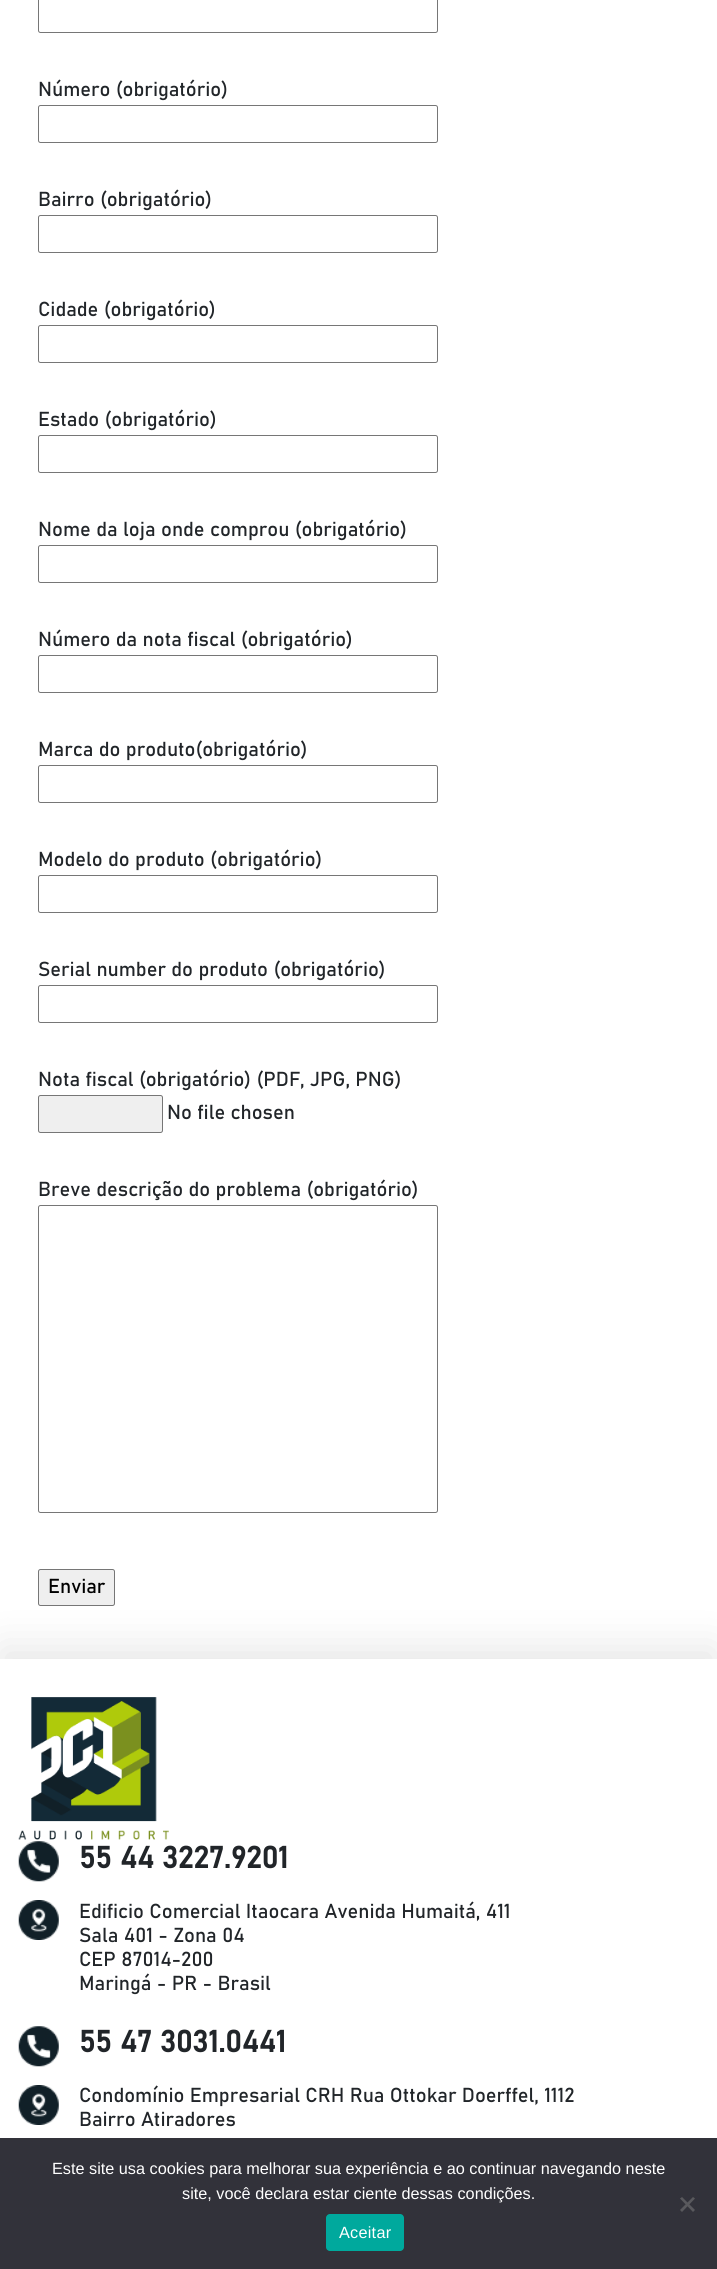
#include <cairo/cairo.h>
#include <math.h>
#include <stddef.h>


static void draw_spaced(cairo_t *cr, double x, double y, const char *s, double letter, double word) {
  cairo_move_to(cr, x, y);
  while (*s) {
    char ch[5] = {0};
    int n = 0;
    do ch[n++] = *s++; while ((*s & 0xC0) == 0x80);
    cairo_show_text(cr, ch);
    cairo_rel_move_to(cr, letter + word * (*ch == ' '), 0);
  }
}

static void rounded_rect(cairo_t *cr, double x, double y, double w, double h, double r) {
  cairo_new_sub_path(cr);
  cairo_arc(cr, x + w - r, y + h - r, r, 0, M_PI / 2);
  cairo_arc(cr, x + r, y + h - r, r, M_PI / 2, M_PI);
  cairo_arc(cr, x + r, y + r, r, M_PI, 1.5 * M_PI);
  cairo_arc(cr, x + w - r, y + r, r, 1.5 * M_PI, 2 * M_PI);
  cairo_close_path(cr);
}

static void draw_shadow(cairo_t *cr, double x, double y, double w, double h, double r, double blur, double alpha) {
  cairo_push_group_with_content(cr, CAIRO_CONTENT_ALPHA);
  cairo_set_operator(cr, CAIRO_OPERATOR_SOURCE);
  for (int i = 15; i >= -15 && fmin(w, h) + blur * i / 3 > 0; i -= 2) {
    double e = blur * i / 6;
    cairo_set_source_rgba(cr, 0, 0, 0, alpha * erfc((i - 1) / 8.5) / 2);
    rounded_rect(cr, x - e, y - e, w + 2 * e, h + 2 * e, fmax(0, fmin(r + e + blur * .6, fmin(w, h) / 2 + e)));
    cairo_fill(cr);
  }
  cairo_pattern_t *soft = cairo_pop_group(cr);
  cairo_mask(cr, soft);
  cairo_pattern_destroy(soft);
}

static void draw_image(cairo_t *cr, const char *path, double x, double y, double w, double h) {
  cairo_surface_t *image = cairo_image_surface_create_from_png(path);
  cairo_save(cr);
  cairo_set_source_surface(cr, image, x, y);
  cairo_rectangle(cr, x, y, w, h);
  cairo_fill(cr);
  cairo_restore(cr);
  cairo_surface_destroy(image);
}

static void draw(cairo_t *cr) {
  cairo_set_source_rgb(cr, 1, 1, 1);
  cairo_paint(cr);
  rounded_rect(cr, 38.5, -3.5, 399, 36, 2);
  cairo_set_source_rgb(cr, 118 / 255.0, 118 / 255.0, 118 / 255.0);
  cairo_set_line_width(cr, 1);
  cairo_stroke(cr);
  rounded_rect(cr, 38.5, 105.5, 399, 37, 2);
  cairo_stroke(cr);
  rounded_rect(cr, 38.5, 215.5, 399, 37, 2);
  cairo_stroke(cr);
  rounded_rect(cr, 38.5, 325.5, 399, 37, 2);
  cairo_stroke(cr);
  rounded_rect(cr, 38.5, 435.5, 399, 37, 2);
  cairo_stroke(cr);
  rounded_rect(cr, 38.5, 545.5, 399, 37, 2);
  cairo_stroke(cr);
  rounded_rect(cr, 38.5, 655.5, 399, 37, 2);
  cairo_stroke(cr);
  rounded_rect(cr, 38.5, 765.5, 399, 37, 2);
  cairo_stroke(cr);
  rounded_rect(cr, 38.5, 875.5, 399, 37, 2);
  cairo_stroke(cr);
  rounded_rect(cr, 38.5, 985.5, 399, 37, 2);
  cairo_stroke(cr);
  cairo_set_source_rgb(cr, 239 / 255.0, 239 / 255.0, 239 / 255.0);
  rounded_rect(cr, 38.5, 1095.5, 124, 37, 2);
  cairo_fill_preserve(cr);
  cairo_set_source_rgb(cr, 118 / 255.0, 118 / 255.0, 118 / 255.0);
  cairo_stroke(cr);
  rounded_rect(cr, 38.5, 1205.5, 399, 307, 2);
  cairo_stroke(cr);
  cairo_set_source_rgb(cr, 0, 0, 0);
  draw_shadow(cr, 1, 1648, 715, 608, 0, 20.5, 0.1);
  cairo_set_source_rgb(cr, 239 / 255.0, 239 / 255.0, 239 / 255.0);
  rounded_rect(cr, 38.5, 1569.5, 76, 36, 2);
  cairo_fill_preserve(cr);
  cairo_set_source_rgb(cr, 118 / 255.0, 118 / 255.0, 118 / 255.0);
  cairo_stroke(cr);
  cairo_set_source_rgb(cr, 1, 1, 1);
  cairo_rectangle(cr, 0, 1659, 717, 479);
  cairo_fill(cr);
  draw_image(cr, "images/1.png", 18, 1697, 151, 143);
  draw_image(cr, "images/2.png", 18, 1841, 41, 41);
  draw_image(cr, "images/3.png", 18, 1900, 41, 40);
  draw_image(cr, "images/4.png", 18, 2026, 41, 41);
  draw_image(cr, "images/3.png", 18, 2085, 41, 40);
  cairo_set_source_rgb(cr, 50 / 255.0, 50 / 255.0, 58 / 255.0);
  cairo_rectangle(cr, 0, 2138, 717, 131);
  cairo_fill(cr);
  cairo_set_source_rgb(cr, 89 / 255.0, 89 / 255.0, 93 / 255.0);
  cairo_new_path(cr);
  cairo_move_to(cr, 693, 2197);
  cairo_line_to(cr, 695, 2198.5);
  cairo_line_to(cr, 682, 2212);
  cairo_line_to(cr, 680, 2210);
  cairo_close_path(cr);
  cairo_fill(cr);
  cairo_new_path(cr);
  cairo_move_to(cr, 680, 2198.5);
  cairo_line_to(cr, 682, 2197);
  cairo_line_to(cr, 695, 2210);
  cairo_line_to(cr, 693, 2212);
  cairo_close_path(cr);
  cairo_fill(cr);
  cairo_set_source_rgb(cr, 0, 169 / 255.0, 157 / 255.0);
  rounded_rect(cr, 326, 2214, 78, 37, 4);
  cairo_fill(cr);
  cairo_select_font_face(cr, "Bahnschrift", CAIRO_FONT_SLANT_NORMAL, CAIRO_FONT_WEIGHT_NORMAL);
  cairo_set_font_size(cr, 20);
  cairo_set_source_rgb(cr, 33 / 255.0, 37 / 255.0, 41 / 255.0);
  cairo_move_to(cr, 38, 96);
  cairo_show_text(cr, "Número (obrigatório)");
  cairo_move_to(cr, 38, 206);
  cairo_show_text(cr, "Bairro (obrigatório)");
  cairo_move_to(cr, 38, 316);
  cairo_show_text(cr, "Cidade (obrigatório)");
  cairo_move_to(cr, 38, 426);
  cairo_show_text(cr, "Estado (obrigatório)");
  cairo_move_to(cr, 38, 536);
  cairo_show_text(cr, "Nome da loja onde comprou (obrigatório)");
  cairo_move_to(cr, 38, 646);
  cairo_show_text(cr, "Número da nota fiscal (obrigatório)");
  cairo_move_to(cr, 38, 756);
  cairo_show_text(cr, "Marca do produto(obrigatório)");
  cairo_move_to(cr, 38, 866);
  cairo_show_text(cr, "Modelo do produto (obrigatório)");
  cairo_move_to(cr, 38, 976);
  cairo_show_text(cr, "Serial number do produto (obrigatório)");
  cairo_move_to(cr, 38, 1086);
  cairo_show_text(cr, "Nota fiscal (obrigatório) (PDF, JPG, PNG)");
  cairo_move_to(cr, 167, 1119);
  cairo_show_text(cr, "No file chosen");
  cairo_move_to(cr, 38, 1196);
  cairo_show_text(cr, "Breve descrição do problema (obrigatório)");
  cairo_set_source_rgb(cr, 0, 0, 0);
  cairo_move_to(cr, 48, 1593);
  cairo_show_text(cr, "Enviar");
  cairo_select_font_face(cr, "Bahnschrift", CAIRO_FONT_SLANT_NORMAL, CAIRO_FONT_WEIGHT_BOLD);
  cairo_set_font_size(cr, 30);
  cairo_set_source_rgb(cr, 33 / 255.0, 37 / 255.0, 41 / 255.0);
  cairo_move_to(cr, 79, 1868);
  cairo_show_text(cr, "55 44 3227.9201");
  cairo_select_font_face(cr, "Bahnschrift", CAIRO_FONT_SLANT_NORMAL, CAIRO_FONT_WEIGHT_NORMAL);
  cairo_set_font_size(cr, 20);
  cairo_move_to(cr, 79, 1918);
  cairo_show_text(cr, "Edificio Comercial Itaocara Avenida Humaitá, 411");
  cairo_move_to(cr, 79, 1942);
  cairo_show_text(cr, "Sala 401 - Zona 04");
  cairo_move_to(cr, 79, 1966);
  cairo_show_text(cr, "CEP 87014-200");
  cairo_move_to(cr, 79, 1990);
  cairo_show_text(cr, "Maringá - PR - Brasil");
  cairo_select_font_face(cr, "Bahnschrift", CAIRO_FONT_SLANT_NORMAL, CAIRO_FONT_WEIGHT_BOLD);
  cairo_set_font_size(cr, 30);
  cairo_move_to(cr, 79, 2052);
  cairo_show_text(cr, "55 47 3031.0441");
  cairo_select_font_face(cr, "Bahnschrift", CAIRO_FONT_SLANT_NORMAL, CAIRO_FONT_WEIGHT_NORMAL);
  cairo_set_font_size(cr, 20);
  cairo_move_to(cr, 79, 2102);
  cairo_show_text(cr, "Condomínio Empresarial CRH Rua Ottokar Doerffel, 1112");
  cairo_move_to(cr, 79, 2126);
  cairo_show_text(cr, "Bairro Atiradores");
  cairo_select_font_face(cr, "Liberation Sans", CAIRO_FONT_SLANT_NORMAL, CAIRO_FONT_WEIGHT_NORMAL);
  cairo_set_font_size(cr, 16.25);
  cairo_set_source_rgb(cr, 1, 1, 1);
  cairo_move_to(cr, 52, 2174);
  cairo_show_text(cr, "Este site usa cookies para melhorar sua experiência e ao continuar navegando neste");
  cairo_move_to(cr, 182, 2199);
  cairo_show_text(cr, "site, você declara estar ciente dessas condições.");
  draw_spaced(cr, 339, 2238, "Aceitar", 0.25, 0);
}

int main(void) {
  cairo_surface_t *surface = cairo_image_surface_create(CAIRO_FORMAT_RGB24, 717, 2269);
  cairo_t *cr = cairo_create(surface);
  cairo_font_options_t *options = cairo_font_options_create();
  cairo_font_options_set_hint_metrics(options, CAIRO_HINT_METRICS_OFF);
  cairo_font_options_set_hint_style(options, CAIRO_HINT_STYLE_NONE);
  cairo_set_font_options(cr, options);
  cairo_set_miter_limit(cr, 4);
  draw(cr);
  cairo_surface_write_to_png(surface, "out.png");
  cairo_font_options_destroy(options);
  cairo_destroy(cr);
  cairo_surface_destroy(surface);
  return 0;
}
